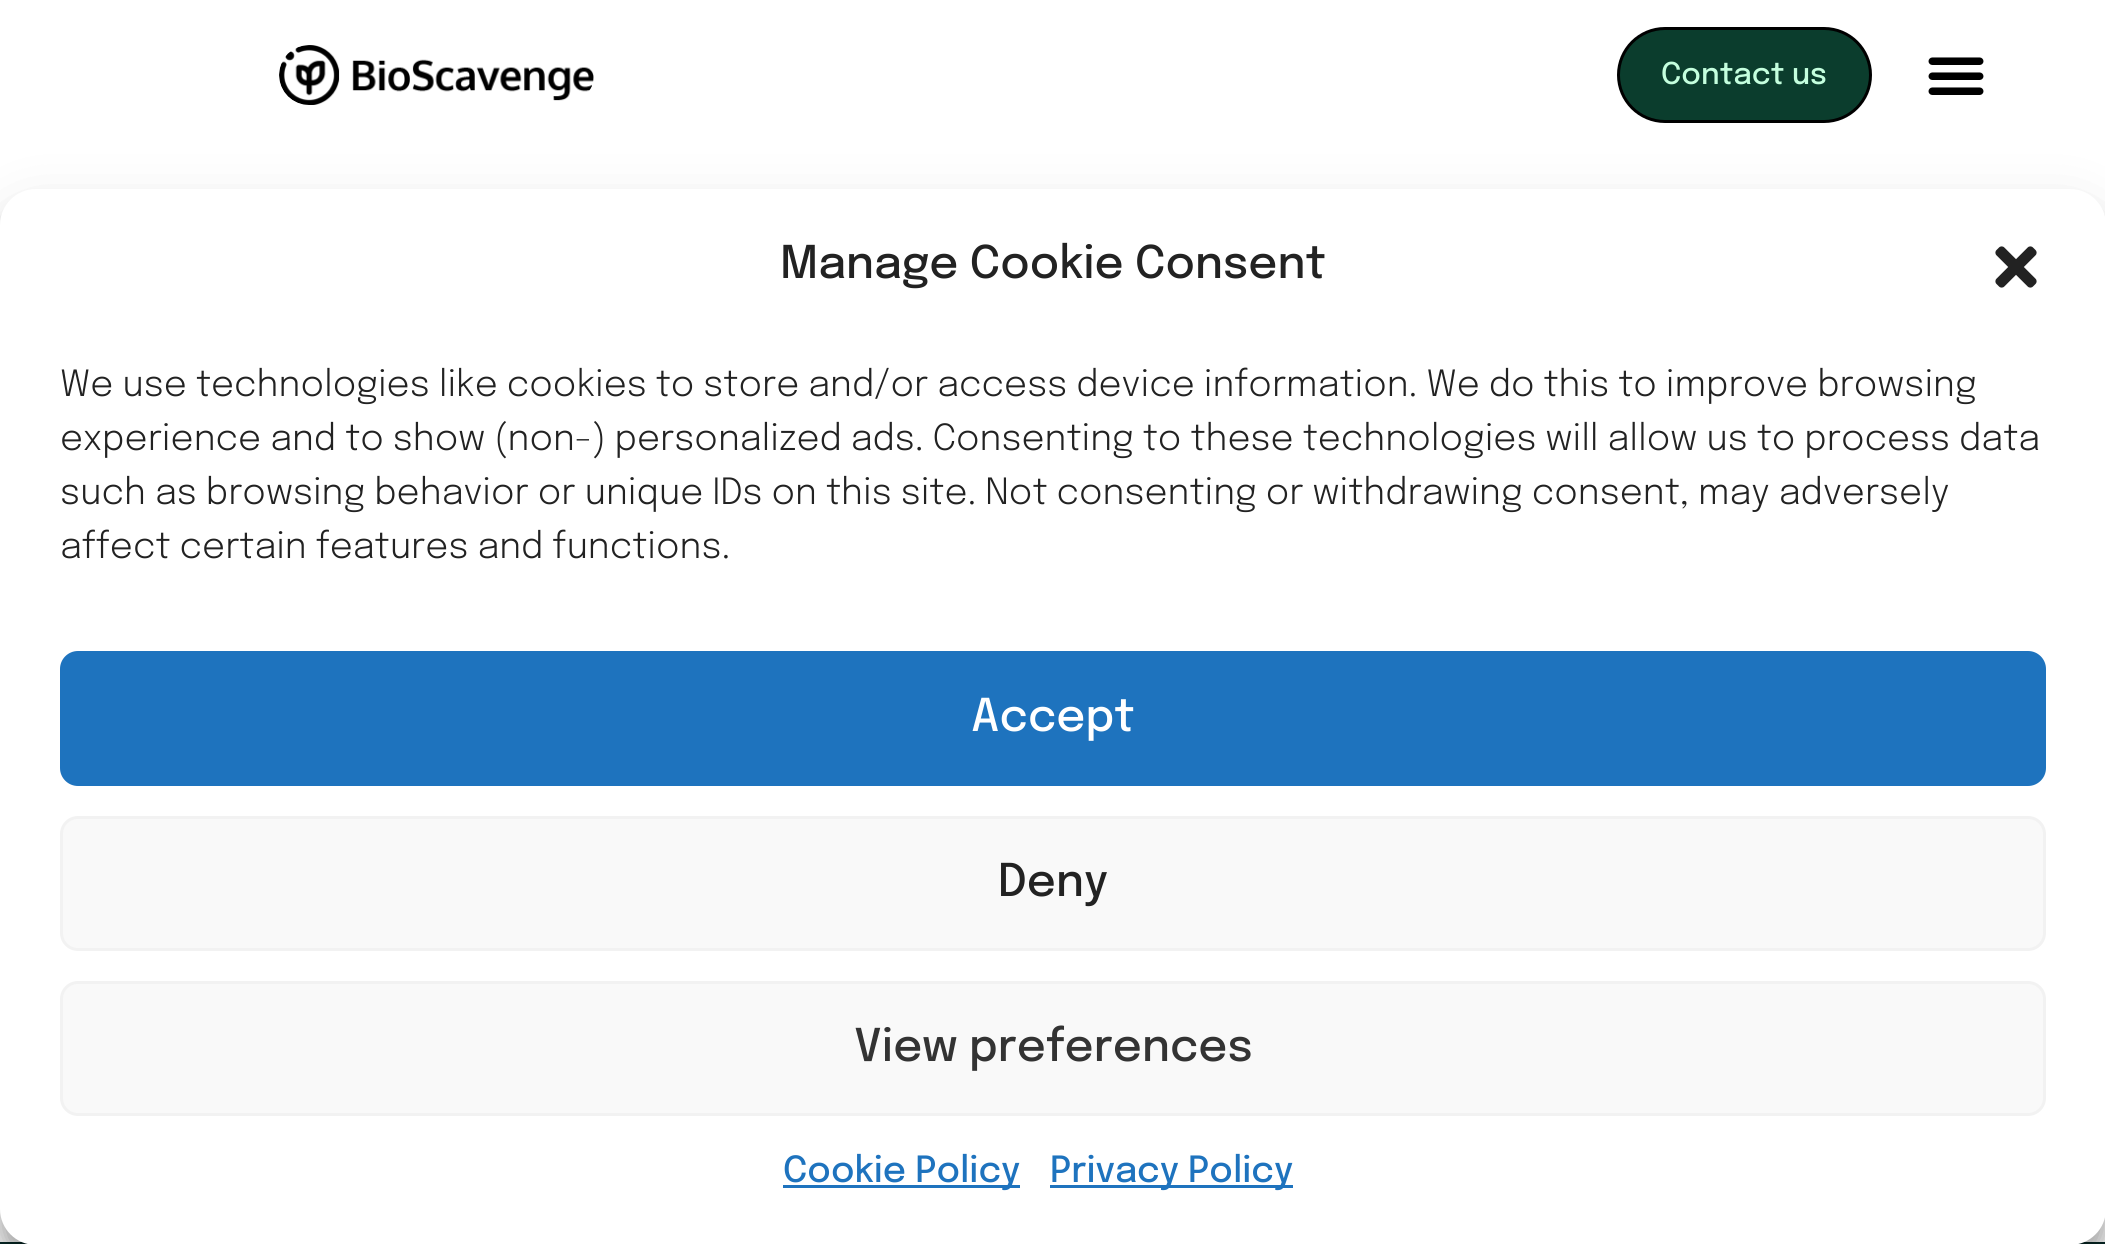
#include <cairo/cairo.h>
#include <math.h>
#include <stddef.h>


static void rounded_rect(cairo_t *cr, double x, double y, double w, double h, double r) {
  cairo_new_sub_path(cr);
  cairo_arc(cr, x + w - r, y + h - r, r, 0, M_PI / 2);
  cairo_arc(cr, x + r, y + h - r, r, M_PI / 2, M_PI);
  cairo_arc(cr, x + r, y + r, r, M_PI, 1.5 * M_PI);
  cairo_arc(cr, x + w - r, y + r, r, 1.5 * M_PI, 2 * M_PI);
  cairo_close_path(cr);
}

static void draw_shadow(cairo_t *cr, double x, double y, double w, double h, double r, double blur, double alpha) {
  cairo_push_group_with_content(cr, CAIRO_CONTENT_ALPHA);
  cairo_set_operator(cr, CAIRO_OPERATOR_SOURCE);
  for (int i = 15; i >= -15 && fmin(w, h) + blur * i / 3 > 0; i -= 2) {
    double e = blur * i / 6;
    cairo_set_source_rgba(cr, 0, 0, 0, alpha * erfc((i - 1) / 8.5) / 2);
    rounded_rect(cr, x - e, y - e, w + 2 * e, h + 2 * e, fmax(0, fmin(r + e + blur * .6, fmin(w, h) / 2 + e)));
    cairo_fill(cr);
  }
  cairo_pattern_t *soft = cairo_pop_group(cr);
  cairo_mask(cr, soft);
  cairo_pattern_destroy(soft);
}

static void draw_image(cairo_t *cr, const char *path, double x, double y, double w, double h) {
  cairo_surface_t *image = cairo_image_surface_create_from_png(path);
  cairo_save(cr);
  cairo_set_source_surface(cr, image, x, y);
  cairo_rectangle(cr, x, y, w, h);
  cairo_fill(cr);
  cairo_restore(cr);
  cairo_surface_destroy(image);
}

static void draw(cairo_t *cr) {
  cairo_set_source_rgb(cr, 1, 1, 1);
  cairo_paint(cr);
  draw_image(cr, "images/1.png", 279, 45, 315, 60);
  cairo_set_source_rgb(cr, 11 / 255.0, 61 / 255.0, 45 / 255.0);
  rounded_rect(cr, 1618.5, 28.5, 252, 93, 46.5);
  cairo_fill_preserve(cr);
  cairo_set_source_rgb(cr, 0, 0, 0);
  cairo_set_line_width(cr, 3);
  cairo_stroke(cr);
  draw_image(cr, "images/2.png", 1928, 57, 56, 38);
  cairo_set_source_rgb(cr, 6 / 255.0, 41 / 255.0, 38 / 255.0);
  cairo_rectangle(cr, 0, 1242, 2105, 2);
  cairo_fill(cr);
  cairo_set_source_rgb(cr, 0, 0, 0);
  draw_shadow(cr, 0, 207, 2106, 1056, 36, 9, 0.23);
  draw_shadow(cr, 0, 219, 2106, 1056, 36, 30, 0.19);
  cairo_set_source_rgb(cr, 1, 1, 1);
  rounded_rect(cr, 0, 189, 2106, 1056, 36);
  cairo_fill(cr);
  draw_image(cr, "images/3.png", 1995, 246, 42, 42);
  cairo_set_source_rgb(cr, 30 / 255.0, 115 / 255.0, 190 / 255.0);
  rounded_rect(cr, 61.5, 652.5, 1983, 132, 16.5);
  cairo_fill_preserve(cr);
  cairo_stroke(cr);
  cairo_set_source_rgb(cr, 249 / 255.0, 249 / 255.0, 249 / 255.0);
  rounded_rect(cr, 61.5, 817.5, 1983, 132, 16.5);
  cairo_fill_preserve(cr);
  cairo_set_source_rgb(cr, 242 / 255.0, 242 / 255.0, 242 / 255.0);
  cairo_stroke(cr);
  cairo_set_source_rgb(cr, 249 / 255.0, 249 / 255.0, 249 / 255.0);
  rounded_rect(cr, 61.5, 982.5, 1983, 132, 16.5);
  cairo_fill_preserve(cr);
  cairo_set_source_rgb(cr, 242 / 255.0, 242 / 255.0, 242 / 255.0);
  cairo_stroke(cr);
  cairo_set_source_rgb(cr, 30 / 255.0, 115 / 255.0, 190 / 255.0);
  cairo_rectangle(cr, 783, 1185, 237, 3);
  cairo_fill(cr);
  cairo_rectangle(cr, 1050, 1185, 243, 3);
  cairo_fill(cr);
  cairo_select_font_face(cr, "Epilogue Medium", CAIRO_FONT_SLANT_NORMAL, CAIRO_FONT_WEIGHT_NORMAL);
  cairo_set_font_size(cr, 30);
  cairo_set_source_rgb(cr, 196 / 255.0, 1, 222 / 255.0);
  cairo_move_to(cr, 1661, 84);
  cairo_show_text(cr, "Contact us");
  cairo_set_font_size(cr, 45);
  cairo_set_source_rgb(cr, 34 / 255.0, 34 / 255.0, 34 / 255.0);
  cairo_move_to(cr, 780, 278);
  cairo_show_text(cr, "Manage Cookie Consent");
  cairo_select_font_face(cr, "Epilogue Light", CAIRO_FONT_SLANT_NORMAL, CAIRO_FONT_WEIGHT_NORMAL);
  cairo_set_font_size(cr, 36);
  cairo_move_to(cr, 60, 396);
  cairo_show_text(cr, "We use technologies like cookies to store and/or access device information. We do this to improve browsing");
  cairo_move_to(cr, 60, 450);
  cairo_show_text(cr, "experience and to show (non-) personalized ads. Consenting to these technologies will allow us to process data");
  cairo_move_to(cr, 60, 504);
  cairo_show_text(cr, "such as browsing behavior or unique IDs on this site. Not consenting or withdrawing consent, may adversely");
  cairo_move_to(cr, 60, 558);
  cairo_show_text(cr, "affect certain features and functions.");
  cairo_select_font_face(cr, "Epilogue Medium", CAIRO_FONT_SLANT_NORMAL, CAIRO_FONT_WEIGHT_NORMAL);
  cairo_set_font_size(cr, 45);
  cairo_set_source_rgb(cr, 1, 1, 1);
  cairo_move_to(cr, 971, 731);
  cairo_show_text(cr, "Accept");
  cairo_set_source_rgb(cr, 34 / 255.0, 34 / 255.0, 34 / 255.0);
  cairo_move_to(cr, 998, 896);
  cairo_show_text(cr, "Deny");
  cairo_set_source_rgb(cr, 51 / 255.0, 51 / 255.0, 51 / 255.0);
  cairo_move_to(cr, 854, 1061);
  cairo_show_text(cr, "View preferences");
  cairo_set_font_size(cr, 36);
  cairo_set_source_rgb(cr, 30 / 255.0, 115 / 255.0, 190 / 255.0);
  cairo_move_to(cr, 783, 1182);
  cairo_show_text(cr, "Cookie Policy");
  cairo_move_to(cr, 1050, 1182);
  cairo_show_text(cr, "Privacy Policy");
}

int main(void) {
  cairo_surface_t *surface = cairo_image_surface_create(CAIRO_FORMAT_RGB24, 2105, 1244);
  cairo_t *cr = cairo_create(surface);
  cairo_font_options_t *options = cairo_font_options_create();
  cairo_font_options_set_hint_metrics(options, CAIRO_HINT_METRICS_OFF);
  cairo_font_options_set_hint_style(options, CAIRO_HINT_STYLE_NONE);
  cairo_set_font_options(cr, options);
  cairo_set_miter_limit(cr, 4);
  draw(cr);
  cairo_surface_write_to_png(surface, "out.png");
  cairo_font_options_destroy(options);
  cairo_destroy(cr);
  cairo_surface_destroy(surface);
  return 0;
}
